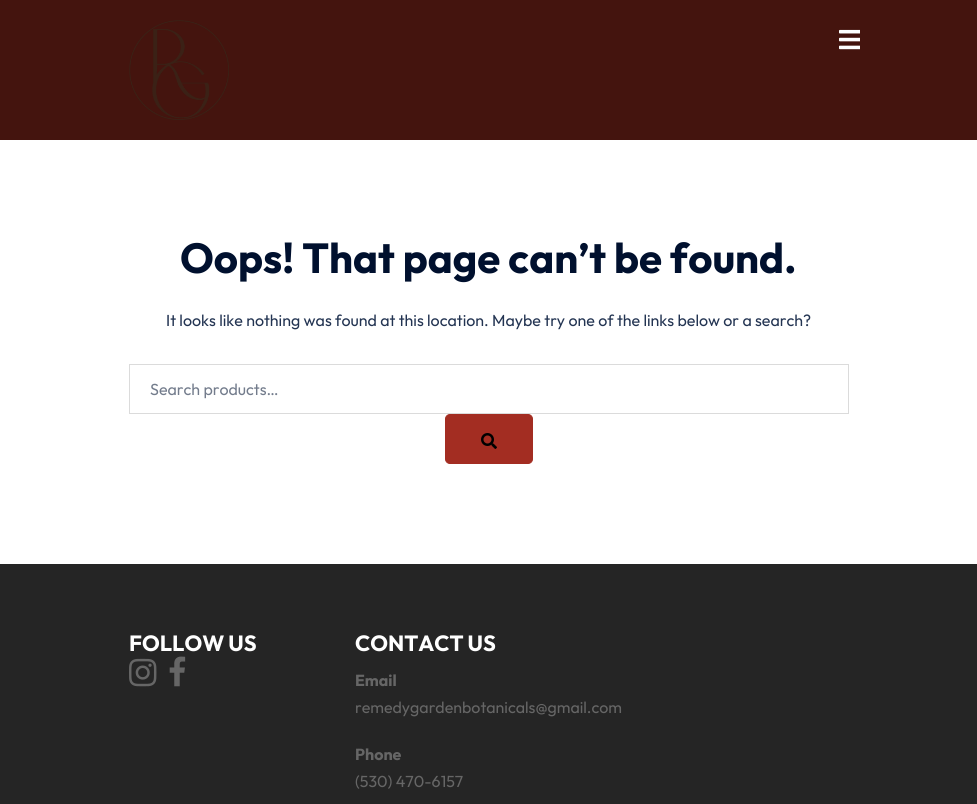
#include <cairo/cairo.h>
#include <math.h>
#include <stddef.h>


static void rounded_rect(cairo_t *cr, double x, double y, double w, double h, double r) {
  cairo_new_sub_path(cr);
  cairo_arc(cr, x + w - r, y + h - r, r, 0, M_PI / 2);
  cairo_arc(cr, x + r, y + h - r, r, M_PI / 2, M_PI);
  cairo_arc(cr, x + r, y + r, r, M_PI, 1.5 * M_PI);
  cairo_arc(cr, x + w - r, y + r, r, 1.5 * M_PI, 2 * M_PI);
  cairo_close_path(cr);
}

static void draw_image(cairo_t *cr, const char *path, double x, double y, double w, double h) {
  cairo_surface_t *image = cairo_image_surface_create_from_png(path);
  cairo_save(cr);
  cairo_set_source_surface(cr, image, x, y);
  cairo_rectangle(cr, x, y, w, h);
  cairo_fill(cr);
  cairo_restore(cr);
  cairo_surface_destroy(image);
}

static void draw(cairo_t *cr) {
  cairo_set_source_rgb(cr, 1, 1, 1);
  cairo_paint(cr);
  cairo_set_source_rgb(cr, 68 / 255.0, 20 / 255.0, 14 / 255.0);
  cairo_rectangle(cr, 0, 0, 977, 140);
  cairo_fill(cr);
  draw_image(cr, "images/1.png", 129, 20, 100, 100);
  draw_image(cr, "images/2.png", 839, 29, 21, 21);
  cairo_rectangle(cr, 129.5, 364.5, 719, 49);
  cairo_set_source_rgb(cr, 219 / 255.0, 219 / 255.0, 219 / 255.0);
  cairo_set_line_width(cr, 1);
  cairo_stroke(cr);
  cairo_set_source_rgb(cr, 163 / 255.0, 45 / 255.0, 34 / 255.0);
  rounded_rect(cr, 445.5, 414.5, 87, 49, 4.5);
  cairo_fill_preserve(cr);
  cairo_stroke(cr);
  draw_image(cr, "images/3.png", 481, 433, 16, 16);
  cairo_set_source_rgb(cr, 37 / 255.0, 37 / 255.0, 37 / 255.0);
  cairo_rectangle(cr, 0, 564, 977, 240);
  cairo_fill(cr);
  draw_image(cr, "images/4.png", 129, 658, 28, 29);
  draw_image(cr, "images/5.png", 169, 656, 17, 31);
  cairo_select_font_face(cr, "Outfit", CAIRO_FONT_SLANT_NORMAL, CAIRO_FONT_WEIGHT_BOLD);
  cairo_set_font_size(cr, 42);
  cairo_set_source_rgb(cr, 0, 16 / 255.0, 46 / 255.0);
  cairo_move_to(cr, 180, 273);
  cairo_show_text(cr, "Oops! That page can’t be found.");
  cairo_select_font_face(cr, "Outfit", CAIRO_FONT_SLANT_NORMAL, CAIRO_FONT_WEIGHT_NORMAL);
  cairo_set_font_size(cr, 16);
  cairo_set_source_rgb(cr, 35 / 255.0, 52 / 255.0, 82 / 255.0);
  cairo_move_to(cr, 166, 326);
  cairo_show_text(cr, "It looks like nothing was found at this location. Maybe try one of the links below or a search?");
  cairo_set_source_rgb(cr, 115 / 255.0, 124 / 255.0, 140 / 255.0);
  cairo_move_to(cr, 150, 395);
  cairo_show_text(cr, "Search products…");
  cairo_select_font_face(cr, "Outfit", CAIRO_FONT_SLANT_NORMAL, CAIRO_FONT_WEIGHT_BOLD);
  cairo_set_font_size(cr, 22);
  cairo_set_source_rgb(cr, 1, 1, 1);
  cairo_move_to(cr, 129, 651);
  cairo_show_text(cr, "FOLLOW US");
  cairo_move_to(cr, 355, 651);
  cairo_show_text(cr, "CONTACT US");
  cairo_set_font_size(cr, 16);
  cairo_set_source_rgb(cr, 102 / 255.0, 102 / 255.0, 102 / 255.0);
  cairo_move_to(cr, 355, 686);
  cairo_show_text(cr, "Email");
  cairo_select_font_face(cr, "Outfit", CAIRO_FONT_SLANT_NORMAL, CAIRO_FONT_WEIGHT_NORMAL);
  cairo_move_to(cr, 355, 713);
  cairo_show_text(cr, "remedygardenbotanicals@gmail.com");
  cairo_select_font_face(cr, "Outfit", CAIRO_FONT_SLANT_NORMAL, CAIRO_FONT_WEIGHT_BOLD);
  cairo_move_to(cr, 355, 760);
  cairo_show_text(cr, "Phone");
  cairo_select_font_face(cr, "Outfit", CAIRO_FONT_SLANT_NORMAL, CAIRO_FONT_WEIGHT_NORMAL);
  cairo_move_to(cr, 355, 787);
  cairo_show_text(cr, "(530) 470-6157");
}

int main(void) {
  cairo_surface_t *surface = cairo_image_surface_create(CAIRO_FORMAT_RGB24, 977, 804);
  cairo_t *cr = cairo_create(surface);
  cairo_font_options_t *options = cairo_font_options_create();
  cairo_font_options_set_hint_metrics(options, CAIRO_HINT_METRICS_OFF);
  cairo_font_options_set_hint_style(options, CAIRO_HINT_STYLE_NONE);
  cairo_set_font_options(cr, options);
  cairo_set_miter_limit(cr, 4);
  draw(cr);
  cairo_surface_write_to_png(surface, "out.png");
  cairo_font_options_destroy(options);
  cairo_destroy(cr);
  cairo_surface_destroy(surface);
  return 0;
}
